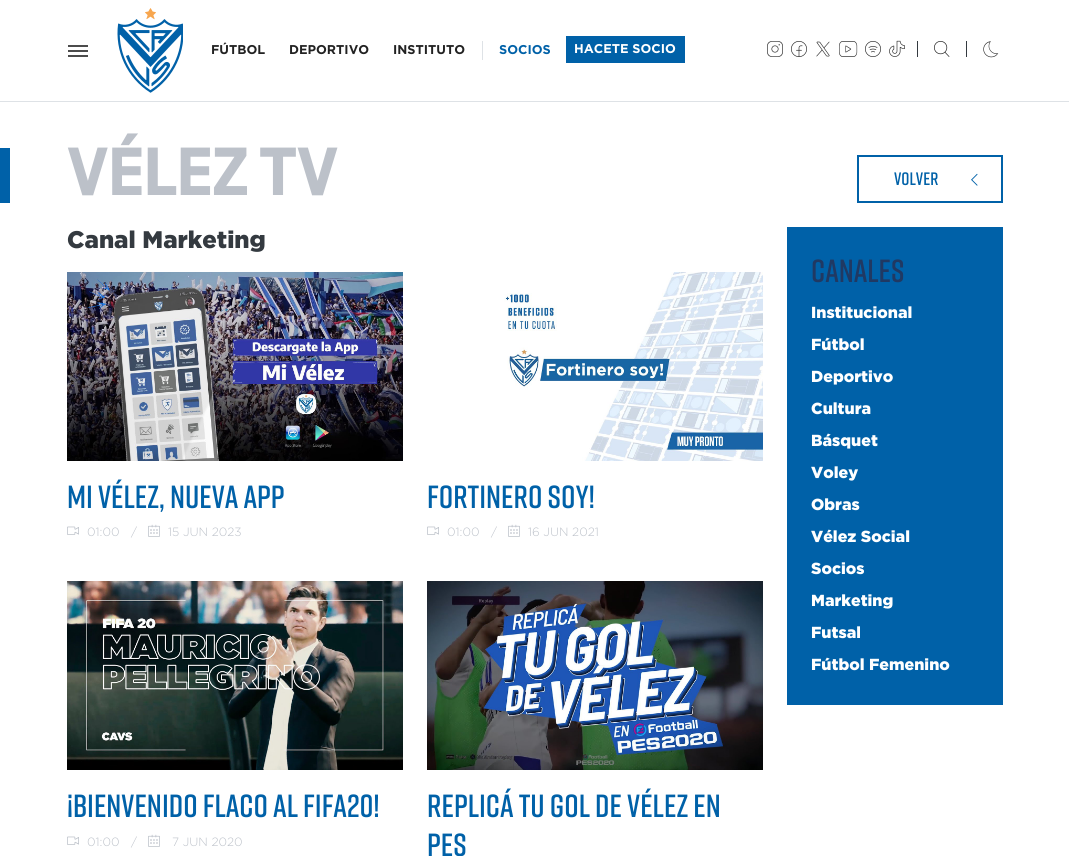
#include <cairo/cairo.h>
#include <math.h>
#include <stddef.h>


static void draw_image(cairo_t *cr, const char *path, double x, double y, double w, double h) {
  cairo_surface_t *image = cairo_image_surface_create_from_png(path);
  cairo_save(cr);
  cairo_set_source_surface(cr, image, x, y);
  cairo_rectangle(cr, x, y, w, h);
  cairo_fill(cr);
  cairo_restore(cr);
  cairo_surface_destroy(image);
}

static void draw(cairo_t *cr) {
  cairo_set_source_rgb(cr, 1, 1, 1);
  cairo_paint(cr);
  cairo_set_source_rgb(cr, 222 / 255.0, 226 / 255.0, 230 / 255.0);
  cairo_rectangle(cr, 0, 101, 1069, 1);
  cairo_fill(cr);
  draw_image(cr, "images/1.png", 68, 45, 20, 12);
  draw_image(cr, "images/2.png", 117, 8, 66, 85);
  cairo_rectangle(cr, 482, 41, 1, 19);
  cairo_fill(cr);
  cairo_set_source_rgb(cr, 0, 97 / 255.0, 168 / 255.0);
  cairo_rectangle(cr, 566, 36, 119, 27);
  cairo_fill(cr);
  draw_image(cr, "images/3.png", 767, 41, 16, 16);
  draw_image(cr, "images/4.png", 791, 41, 16, 16);
  draw_image(cr, "images/5.png", 816, 41, 14, 16);
  draw_image(cr, "images/6.png", 839, 41, 19, 16);
  draw_image(cr, "images/7.png", 865, 41, 16, 16);
  draw_image(cr, "images/8.png", 889, 40, 16, 17);
  cairo_set_source_rgb(cr, 52 / 255.0, 58 / 255.0, 64 / 255.0);
  cairo_rectangle(cr, 917, 41, 1, 16);
  cairo_fill(cr);
  draw_image(cr, "images/9.png", 934, 41, 16, 16);
  cairo_rectangle(cr, 966, 41, 1, 16);
  cairo_fill(cr);
  draw_image(cr, "images/10.png", 983, 41, 16, 17);
  cairo_set_source_rgb(cr, 0, 97 / 255.0, 168 / 255.0);
  cairo_rectangle(cr, 0, 148, 10, 55);
  cairo_fill(cr);
  cairo_rectangle(cr, 858, 156, 144, 46);
  cairo_stroke(cr);
  draw_image(cr, "images/11.png", 971, 173, 7, 13);
  draw_image(cr, "images/12.png", 67, 272, 336, 189);
  draw_image(cr, "images/13.png", 67, 526, 12, 9);
  draw_image(cr, "images/14.png", 148, 524, 12, 13);
  draw_image(cr, "images/15.png", 504, 272, 259, 189);
  draw_image(cr, "images/13.png", 427, 526, 12, 9);
  draw_image(cr, "images/14.png", 508, 524, 12, 13);
  draw_image(cr, "images/16.png", 67, 581, 336, 189);
  draw_image(cr, "images/13.png", 67, 836, 12, 9);
  draw_image(cr, "images/14.png", 148, 834, 12, 13);
  draw_image(cr, "images/17.png", 427, 581, 336, 189);
  cairo_rectangle(cr, 787, 227, 216, 478);
  cairo_fill(cr);
  cairo_select_font_face(cr, "Gotham", CAIRO_FONT_SLANT_NORMAL, CAIRO_FONT_WEIGHT_BOLD);
  cairo_set_font_size(cr, 12.75);
  cairo_set_source_rgb(cr, 34 / 255.0, 34 / 255.0, 34 / 255.0);
  cairo_move_to(cr, 211, 54);
  cairo_show_text(cr, "FÚTBOL");
  cairo_move_to(cr, 289, 54);
  cairo_show_text(cr, "DEPORTIVO");
  cairo_move_to(cr, 393, 54);
  cairo_show_text(cr, "INSTITUTO");
  cairo_set_source_rgb(cr, 0, 97 / 255.0, 168 / 255.0);
  cairo_move_to(cr, 499, 54);
  cairo_show_text(cr, "SOCIOS");
  cairo_set_source_rgb(cr, 1, 1, 1);
  cairo_move_to(cr, 574, 53);
  cairo_show_text(cr, "HACETE SOCIO");
  cairo_select_font_face(cr, "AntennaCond", CAIRO_FONT_SLANT_NORMAL, CAIRO_FONT_WEIGHT_BOLD);
  cairo_set_font_size(cr, 64);
  cairo_set_source_rgb(cr, 188 / 255.0, 193 / 255.0, 201 / 255.0);
  cairo_move_to(cr, 67, 195);
  cairo_show_text(cr, "VÉLEZ TV");
  cairo_select_font_face(cr, "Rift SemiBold", CAIRO_FONT_SLANT_NORMAL, CAIRO_FONT_WEIGHT_NORMAL);
  cairo_set_font_size(cr, 18);
  cairo_set_source_rgb(cr, 0, 97 / 255.0, 168 / 255.0);
  cairo_move_to(cr, 894, 185);
  cairo_show_text(cr, "VOLVER");
  cairo_select_font_face(cr, "Gotham Black", CAIRO_FONT_SLANT_NORMAL, CAIRO_FONT_WEIGHT_NORMAL);
  cairo_set_font_size(cr, 24);
  cairo_set_source_rgb(cr, 52 / 255.0, 58 / 255.0, 64 / 255.0);
  cairo_move_to(cr, 67, 248);
  cairo_show_text(cr, "Canal Marketing");
  cairo_select_font_face(cr, "Rift SemiBold", CAIRO_FONT_SLANT_NORMAL, CAIRO_FONT_WEIGHT_NORMAL);
  cairo_set_font_size(cr, 32);
  cairo_set_source_rgb(cr, 0, 97 / 255.0, 168 / 255.0);
  cairo_move_to(cr, 67, 508);
  cairo_show_text(cr, "MI VÉLEZ, NUEVA APP");
  cairo_select_font_face(cr, "Gotham Light", CAIRO_FONT_SLANT_NORMAL, CAIRO_FONT_WEIGHT_NORMAL);
  cairo_set_font_size(cr, 12);
  cairo_set_source_rgb(cr, 188 / 255.0, 193 / 255.0, 201 / 255.0);
  cairo_move_to(cr, 87, 536);
  cairo_show_text(cr, "01:00");
  cairo_move_to(cr, 131, 536);
  cairo_show_text(cr, "/");
  cairo_move_to(cr, 168, 536);
  cairo_show_text(cr, "15 JUN 2023");
  cairo_select_font_face(cr, "Rift SemiBold", CAIRO_FONT_SLANT_NORMAL, CAIRO_FONT_WEIGHT_NORMAL);
  cairo_set_font_size(cr, 32);
  cairo_set_source_rgb(cr, 0, 97 / 255.0, 168 / 255.0);
  cairo_move_to(cr, 427, 508);
  cairo_show_text(cr, "FORTINERO SOY!");
  cairo_select_font_face(cr, "Gotham Light", CAIRO_FONT_SLANT_NORMAL, CAIRO_FONT_WEIGHT_NORMAL);
  cairo_set_font_size(cr, 12);
  cairo_set_source_rgb(cr, 188 / 255.0, 193 / 255.0, 201 / 255.0);
  cairo_move_to(cr, 447, 536);
  cairo_show_text(cr, "01:00");
  cairo_move_to(cr, 491, 536);
  cairo_show_text(cr, "/");
  cairo_move_to(cr, 528, 536);
  cairo_show_text(cr, "16 JUN 2021");
  cairo_select_font_face(cr, "Rift SemiBold", CAIRO_FONT_SLANT_NORMAL, CAIRO_FONT_WEIGHT_NORMAL);
  cairo_set_font_size(cr, 32);
  cairo_set_source_rgb(cr, 0, 97 / 255.0, 168 / 255.0);
  cairo_move_to(cr, 67, 817);
  cairo_show_text(cr, "¡BIENVENIDO FLACO AL FIFA20!");
  cairo_select_font_face(cr, "Gotham Light", CAIRO_FONT_SLANT_NORMAL, CAIRO_FONT_WEIGHT_NORMAL);
  cairo_set_font_size(cr, 12);
  cairo_set_source_rgb(cr, 188 / 255.0, 193 / 255.0, 201 / 255.0);
  cairo_move_to(cr, 87, 846);
  cairo_show_text(cr, "01:00");
  cairo_move_to(cr, 131, 846);
  cairo_show_text(cr, "/");
  cairo_move_to(cr, 172, 846);
  cairo_show_text(cr, "7 JUN 2020");
  cairo_select_font_face(cr, "Rift SemiBold", CAIRO_FONT_SLANT_NORMAL, CAIRO_FONT_WEIGHT_NORMAL);
  cairo_set_font_size(cr, 32);
  cairo_set_source_rgb(cr, 0, 97 / 255.0, 168 / 255.0);
  cairo_move_to(cr, 427, 817);
  cairo_show_text(cr, "REPLICÁ TU GOL DE VÉLEZ EN");
  cairo_move_to(cr, 427, 856);
  cairo_show_text(cr, "PES");
  cairo_set_source_rgb(cr, 32 / 255.0, 57 / 255.0, 99 / 255.0);
  cairo_move_to(cr, 811, 282);
  cairo_show_text(cr, "CANALES");
  cairo_select_font_face(cr, "Gotham Black", CAIRO_FONT_SLANT_NORMAL, CAIRO_FONT_WEIGHT_NORMAL);
  cairo_set_font_size(cr, 16);
  cairo_set_source_rgb(cr, 1, 1, 1);
  cairo_move_to(cr, 811, 318);
  cairo_show_text(cr, "Institucional");
  cairo_move_to(cr, 811, 350);
  cairo_show_text(cr, "Fútbol");
  cairo_move_to(cr, 811, 382);
  cairo_show_text(cr, "Deportivo");
  cairo_move_to(cr, 811, 414);
  cairo_show_text(cr, "Cultura");
  cairo_move_to(cr, 811, 446);
  cairo_show_text(cr, "Básquet");
  cairo_move_to(cr, 811, 478);
  cairo_show_text(cr, "Voley");
  cairo_move_to(cr, 811, 510);
  cairo_show_text(cr, "Obras");
  cairo_move_to(cr, 811, 542);
  cairo_show_text(cr, "Vélez Social");
  cairo_move_to(cr, 811, 574);
  cairo_show_text(cr, "Socios");
  cairo_move_to(cr, 811, 606);
  cairo_show_text(cr, "Marketing");
  cairo_move_to(cr, 811, 638);
  cairo_show_text(cr, "Futsal");
  cairo_move_to(cr, 811, 670);
  cairo_show_text(cr, "Fútbol Femenino");
}

int main(void) {
  cairo_surface_t *surface = cairo_image_surface_create(CAIRO_FORMAT_RGB24, 1069, 856);
  cairo_t *cr = cairo_create(surface);
  cairo_font_options_t *options = cairo_font_options_create();
  cairo_font_options_set_hint_metrics(options, CAIRO_HINT_METRICS_OFF);
  cairo_font_options_set_hint_style(options, CAIRO_HINT_STYLE_NONE);
  cairo_set_font_options(cr, options);
  cairo_set_miter_limit(cr, 4);
  draw(cr);
  cairo_surface_write_to_png(surface, "out.png");
  cairo_font_options_destroy(options);
  cairo_destroy(cr);
  cairo_surface_destroy(surface);
  return 0;
}
